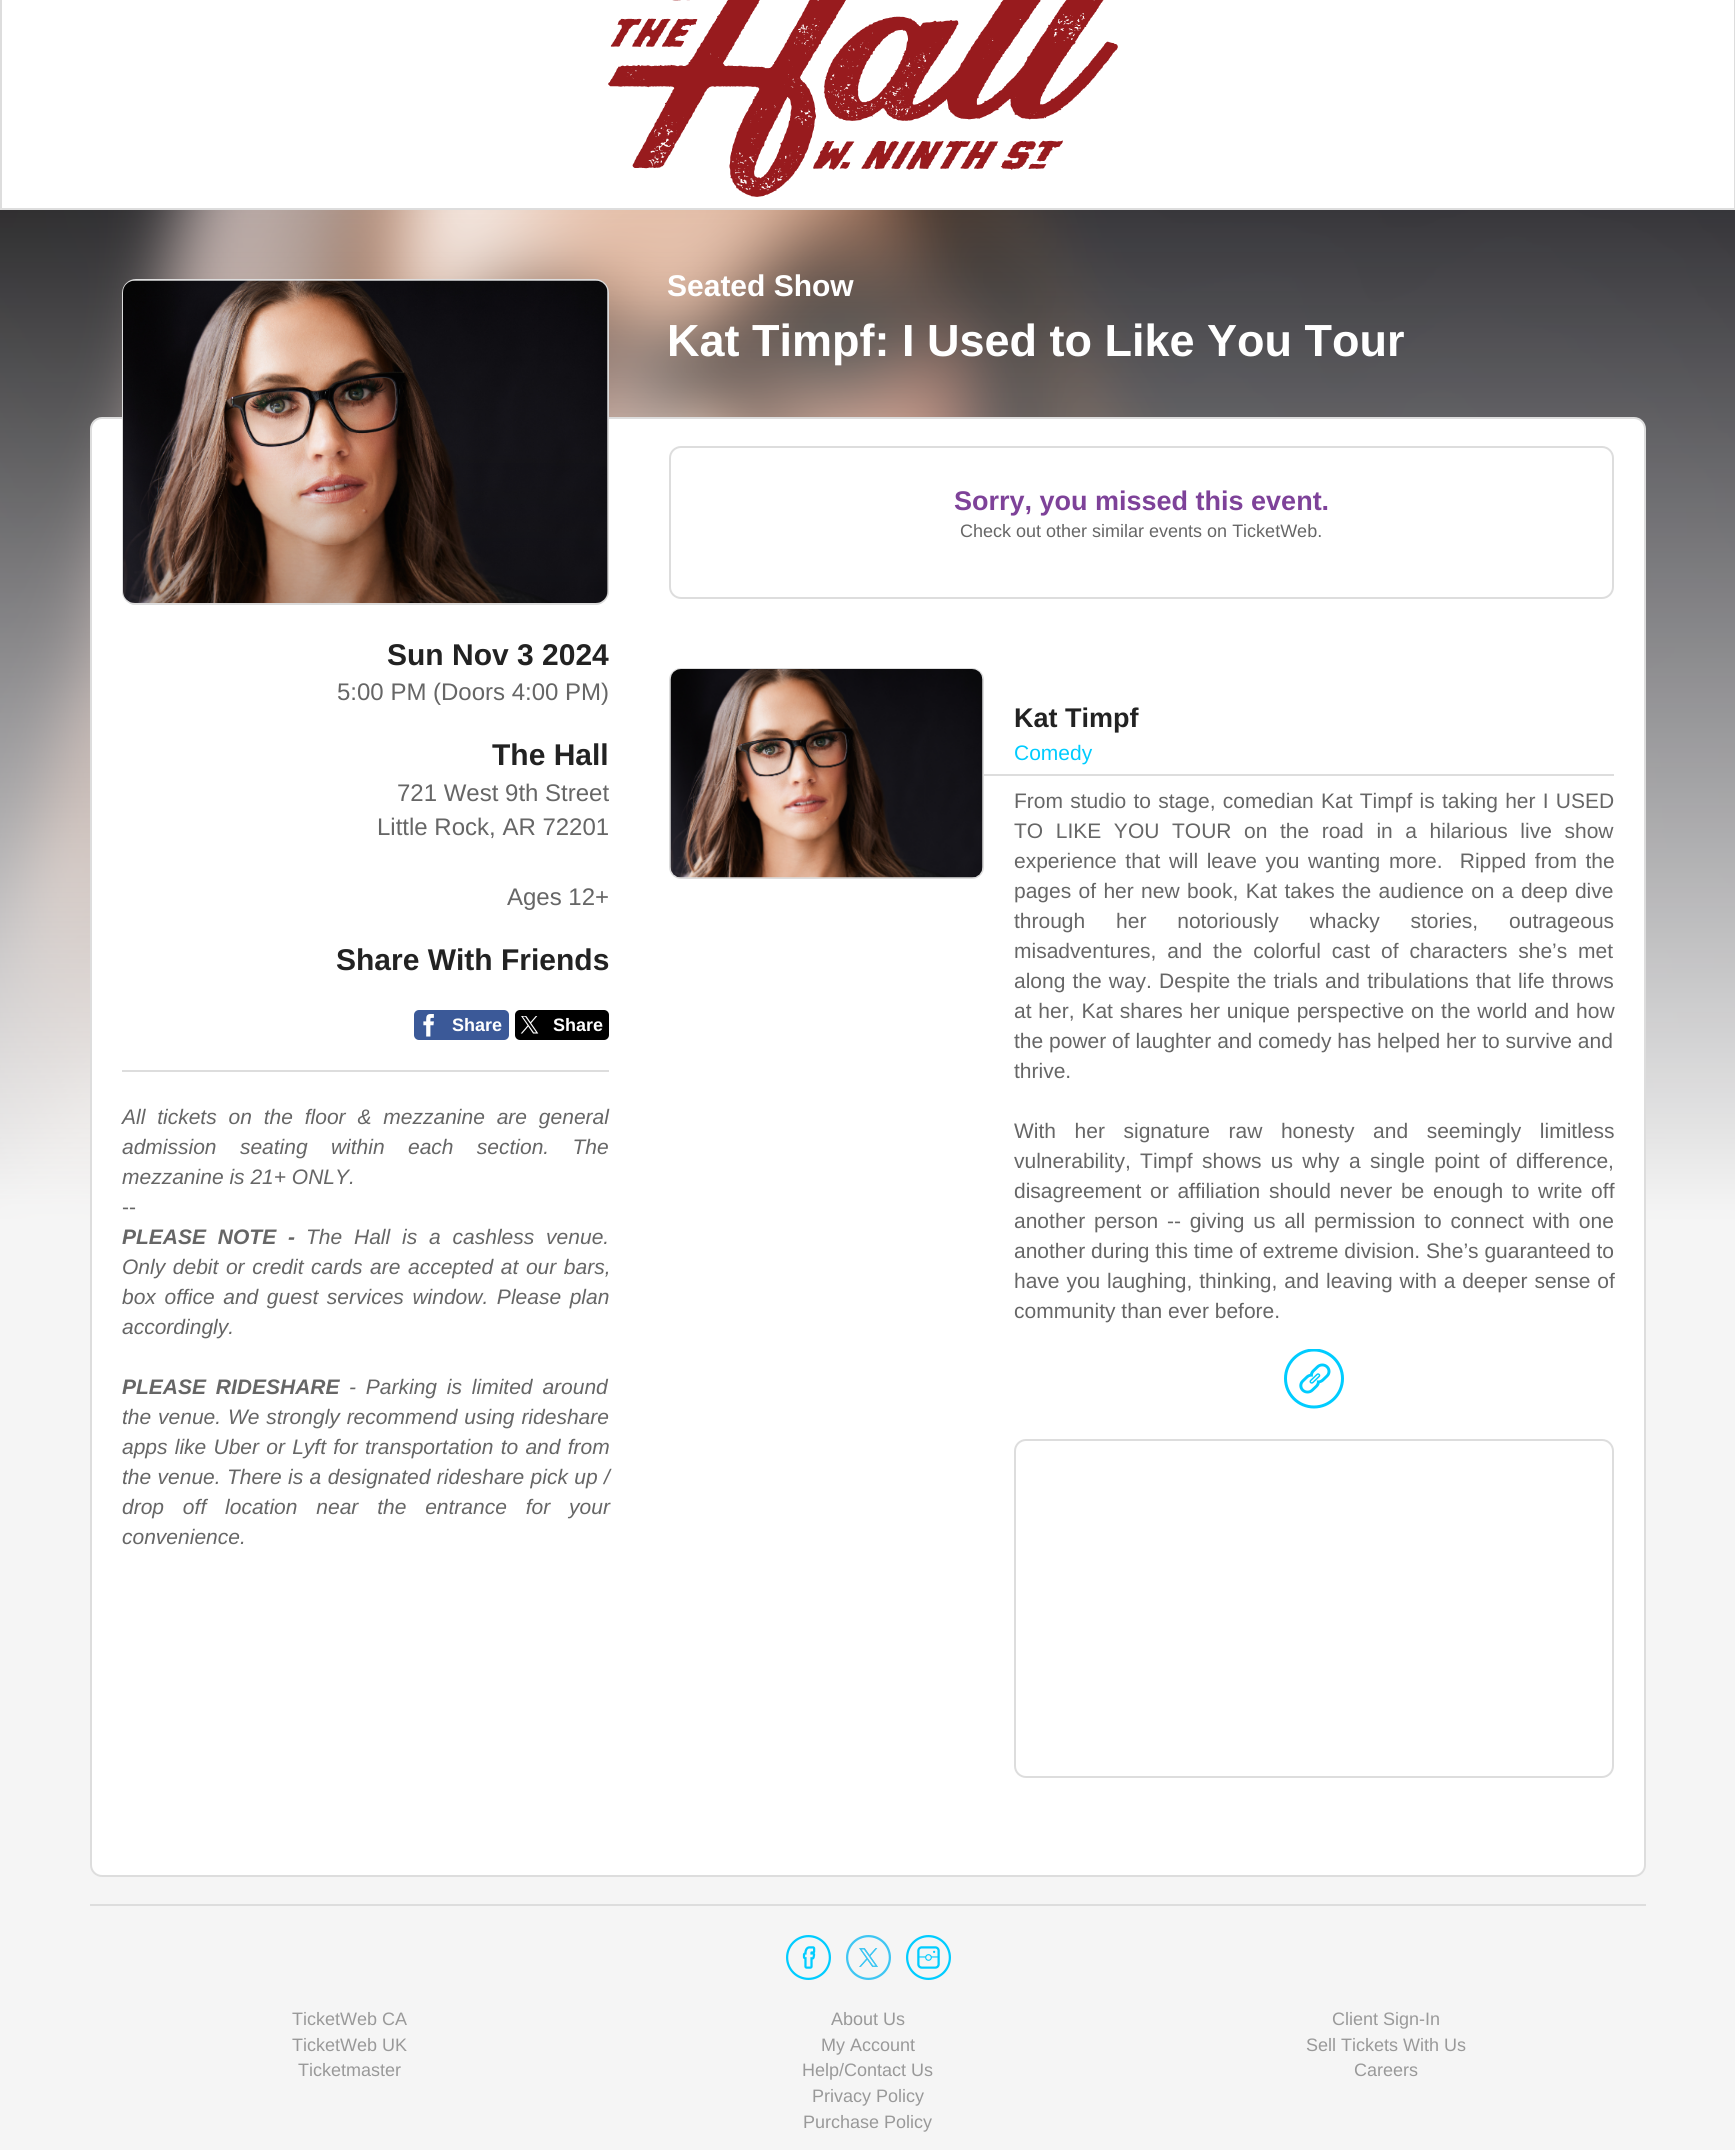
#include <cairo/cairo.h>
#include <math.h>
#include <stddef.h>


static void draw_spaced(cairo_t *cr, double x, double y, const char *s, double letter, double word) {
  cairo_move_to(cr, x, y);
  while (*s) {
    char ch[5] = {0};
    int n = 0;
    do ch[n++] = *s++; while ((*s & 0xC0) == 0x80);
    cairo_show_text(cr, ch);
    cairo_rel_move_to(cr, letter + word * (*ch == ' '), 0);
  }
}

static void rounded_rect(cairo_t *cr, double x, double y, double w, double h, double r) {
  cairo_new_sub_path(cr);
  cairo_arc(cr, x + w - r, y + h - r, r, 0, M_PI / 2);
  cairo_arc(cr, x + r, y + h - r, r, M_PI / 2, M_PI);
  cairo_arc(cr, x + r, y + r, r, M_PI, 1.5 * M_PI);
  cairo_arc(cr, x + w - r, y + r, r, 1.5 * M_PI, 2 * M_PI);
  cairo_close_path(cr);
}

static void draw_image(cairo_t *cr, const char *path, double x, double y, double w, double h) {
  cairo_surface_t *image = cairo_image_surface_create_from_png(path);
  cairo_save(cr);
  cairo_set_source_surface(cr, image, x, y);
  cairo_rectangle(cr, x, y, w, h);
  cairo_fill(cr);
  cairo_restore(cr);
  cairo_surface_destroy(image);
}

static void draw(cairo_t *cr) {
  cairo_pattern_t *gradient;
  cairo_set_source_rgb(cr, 245 / 255.0, 245 / 255.0, 245 / 255.0);
  cairo_paint(cr);
  cairo_set_source_rgb(cr, 1, 1, 1);
  cairo_rectangle(cr, 1, -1, 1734, 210);
  cairo_fill_preserve(cr);
  cairo_set_source_rgb(cr, 221 / 255.0, 221 / 255.0, 221 / 255.0);
  cairo_stroke(cr);
  draw_image(cr, "images/1.png", 608, 0, 510, 197);
  draw_image(cr, "images/2.png", 0, 210, 1735, 1009);
  gradient = cairo_pattern_create_linear(868, 0, 868, 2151);
  cairo_pattern_add_color_stop_rgba(gradient, 0, 245 / 255.0, 245 / 255.0, 245 / 255.0, 0);
  cairo_pattern_add_color_stop_rgba(gradient, 0.57, 245 / 255.0, 245 / 255.0, 245 / 255.0, 1);
  cairo_set_source(cr, gradient);
  cairo_pattern_destroy(gradient);
  cairo_rectangle(cr, 0, 210, 1735, 1009);
  cairo_fill(cr);
  cairo_set_source_rgb(cr, 1, 1, 1);
  rounded_rect(cr, 91, 418, 1554, 1458, 11);
  cairo_fill_preserve(cr);
  cairo_set_source_rgb(cr, 221 / 255.0, 221 / 255.0, 221 / 255.0);
  cairo_stroke(cr);
  rounded_rect(cr, 123, 420, 485, 184, 13);
  cairo_stroke(cr);
  rounded_rect(cr, 123, 280, 485, 324, 13);
  cairo_stroke(cr);
  draw_image(cr, "images/3.png", 123, 280, 485, 323);
  gradient = cairo_pattern_create_linear(365, 281, 365, 603);
  cairo_pattern_add_color_stop_rgba(gradient, 0.5, 0, 0, 0, 0);
  cairo_pattern_add_color_stop_rgba(gradient, 1, 0, 0, 0, 0.2);
  cairo_set_source(cr, gradient);
  cairo_pattern_destroy(gradient);
  rounded_rect(cr, 123, 281, 485, 322, 12);
  cairo_fill(cr);
  cairo_set_source_rgb(cr, 59 / 255.0, 89 / 255.0, 152 / 255.0);
  rounded_rect(cr, 414, 1010, 95, 30, 5);
  cairo_fill(cr);
  draw_image(cr, "images/4.png", 423, 1014, 11, 23);
  cairo_set_source_rgb(cr, 0, 0, 0);
  rounded_rect(cr, 515, 1010, 94, 30, 5);
  cairo_fill(cr);
  draw_image(cr, "images/5.png", 520, 1016, 19, 18);
  cairo_set_source_rgb(cr, 221 / 255.0, 221 / 255.0, 221 / 255.0);
  cairo_rectangle(cr, 122, 1070, 487, 2);
  cairo_fill(cr);
  rounded_rect(cr, 670, 447, 943, 151, 11);
  cairo_stroke(cr);
  rounded_rect(cr, 670, 669, 313, 209, 11);
  cairo_stroke(cr);
  draw_image(cr, "images/6.png", 670, 669, 313, 209);
  cairo_rectangle(cr, 984, 774, 630, 2);
  cairo_fill(cr);
  draw_image(cr, "images/7.png", 1284, 1349, 60, 60);
  rounded_rect(cr, 1015, 1440, 598, 337, 11);
  cairo_stroke(cr);
  cairo_rectangle(cr, 90, 1904, 1556, 2);
  cairo_fill(cr);
  draw_image(cr, "images/8.png", 786, 1935, 45, 45);
  draw_image(cr, "images/9.png", 846, 1935, 45, 45);
  draw_image(cr, "images/10.png", 906, 1935, 45, 45);
  cairo_select_font_face(cr, "Liberation Sans", CAIRO_FONT_SLANT_NORMAL, CAIRO_FONT_WEIGHT_BOLD);
  cairo_set_font_size(cr, 30);
  cairo_set_source_rgb(cr, 34 / 255.0, 34 / 255.0, 34 / 255.0);
  cairo_move_to(cr, 387, 665);
  cairo_show_text(cr, "Sun Nov 3 2024");
  cairo_select_font_face(cr, "Liberation Sans", CAIRO_FONT_SLANT_NORMAL, CAIRO_FONT_WEIGHT_NORMAL);
  cairo_set_font_size(cr, 24);
  cairo_set_source_rgb(cr, 102 / 255.0, 102 / 255.0, 102 / 255.0);
  cairo_move_to(cr, 337, 700);
  cairo_show_text(cr, "5:00 PM (Doors 4:00 PM)");
  cairo_select_font_face(cr, "Liberation Sans", CAIRO_FONT_SLANT_NORMAL, CAIRO_FONT_WEIGHT_BOLD);
  cairo_set_font_size(cr, 30);
  cairo_set_source_rgb(cr, 34 / 255.0, 34 / 255.0, 34 / 255.0);
  cairo_move_to(cr, 492, 765);
  cairo_show_text(cr, "The Hall");
  cairo_select_font_face(cr, "Liberation Sans", CAIRO_FONT_SLANT_NORMAL, CAIRO_FONT_WEIGHT_NORMAL);
  cairo_set_font_size(cr, 24);
  cairo_set_source_rgb(cr, 102 / 255.0, 102 / 255.0, 102 / 255.0);
  cairo_move_to(cr, 397, 801);
  cairo_show_text(cr, "721 West 9th Street");
  cairo_move_to(cr, 377, 835);
  cairo_show_text(cr, "Little Rock, AR 72201");
  cairo_move_to(cr, 507, 905);
  cairo_show_text(cr, "Ages 12+");
  cairo_select_font_face(cr, "Liberation Sans", CAIRO_FONT_SLANT_NORMAL, CAIRO_FONT_WEIGHT_BOLD);
  cairo_set_font_size(cr, 30);
  cairo_set_source_rgb(cr, 34 / 255.0, 34 / 255.0, 34 / 255.0);
  cairo_move_to(cr, 336, 970);
  cairo_show_text(cr, "Share With Friends");
  cairo_set_font_size(cr, 18);
  cairo_set_source_rgb(cr, 1, 1, 1);
  cairo_move_to(cr, 452, 1031);
  cairo_show_text(cr, "Share");
  cairo_move_to(cr, 553, 1031);
  cairo_show_text(cr, "Share");
  cairo_select_font_face(cr, "Liberation Sans", CAIRO_FONT_SLANT_ITALIC, CAIRO_FONT_WEIGHT_NORMAL);
  cairo_set_font_size(cr, 21);
  cairo_set_source_rgb(cr, 102 / 255.0, 102 / 255.0, 102 / 255.0);
  draw_spaced(cr, 122, 1124, "All tickets on the floor & mezzanine are general", 0, 6);
  draw_spaced(cr, 122, 1154, "admission seating within each section. The", 0, 17.5);
  cairo_move_to(cr, 122, 1184);
  cairo_show_text(cr, "mezzanine is 21+ ONLY.");
  cairo_select_font_face(cr, "Liberation Sans", CAIRO_FONT_SLANT_NORMAL, CAIRO_FONT_WEIGHT_NORMAL);
  cairo_move_to(cr, 122, 1214);
  cairo_show_text(cr, "--");
  cairo_select_font_face(cr, "Liberation Sans", CAIRO_FONT_SLANT_ITALIC, CAIRO_FONT_WEIGHT_BOLD);
  draw_spaced(cr, 122, 1244, "PLEASE NOTE -", 0, 6);
  cairo_select_font_face(cr, "Liberation Sans", CAIRO_FONT_SLANT_ITALIC, CAIRO_FONT_WEIGHT_NORMAL);
  draw_spaced(cr, 306, 1244, "The Hall is a cashless venue.", 0, 6);
  draw_spaced(cr, 122, 1274, "Only debit or credit cards are accepted at our bars,", 0, 1.75);
  draw_spaced(cr, 122, 1304, "box office and guest services window. Please plan", 0, 2.75);
  cairo_move_to(cr, 122, 1334);
  cairo_show_text(cr, "accordingly.");
  cairo_select_font_face(cr, "Liberation Sans", CAIRO_FONT_SLANT_ITALIC, CAIRO_FONT_WEIGHT_BOLD);
  draw_spaced(cr, 122, 1394, "PLEASE RIDESHARE", 0, 4);
  cairo_select_font_face(cr, "Liberation Sans", CAIRO_FONT_SLANT_ITALIC, CAIRO_FONT_WEIGHT_NORMAL);
  draw_spaced(cr, 349, 1394, "- Parking is limited around", 0, 4);
  draw_spaced(cr, 122, 1424, "the venue. We strongly recommend using rideshare", 0, 1);
  draw_spaced(cr, 122, 1454, "apps like Uber or Lyft for transportation to and from", 0, 1.4);
  draw_spaced(cr, 122, 1484, "the venue. There is a designated rideshare pick up /", 0, 0.5);
  draw_spaced(cr, 122, 1514, "drop off location near the entrance for your", 0, 13);
  cairo_move_to(cr, 122, 1544);
  cairo_show_text(cr, "convenience.");
  cairo_select_font_face(cr, "Liberation Sans", CAIRO_FONT_SLANT_NORMAL, CAIRO_FONT_WEIGHT_BOLD);
  cairo_set_font_size(cr, 30);
  cairo_set_source_rgb(cr, 1, 1, 1);
  cairo_move_to(cr, 667, 296);
  cairo_show_text(cr, "Seated Show");
  cairo_set_font_size(cr, 45);
  cairo_move_to(cr, 667, 356);
  cairo_show_text(cr, "Kat Timpf: I Used to Like You Tour");
  cairo_set_font_size(cr, 27);
  cairo_set_source_rgb(cr, 126 / 255.0, 66 / 255.0, 153 / 255.0);
  cairo_move_to(cr, 954, 510);
  cairo_show_text(cr, "Sorry, you missed this event.");
  cairo_select_font_face(cr, "Liberation Sans", CAIRO_FONT_SLANT_NORMAL, CAIRO_FONT_WEIGHT_NORMAL);
  cairo_set_font_size(cr, 18);
  cairo_set_source_rgb(cr, 102 / 255.0, 102 / 255.0, 102 / 255.0);
  cairo_move_to(cr, 960, 537);
  cairo_show_text(cr, "Check out other similar events on TicketWeb.");
  cairo_select_font_face(cr, "Liberation Sans", CAIRO_FONT_SLANT_NORMAL, CAIRO_FONT_WEIGHT_BOLD);
  cairo_set_font_size(cr, 27);
  cairo_set_source_rgb(cr, 34 / 255.0, 34 / 255.0, 34 / 255.0);
  cairo_move_to(cr, 1014, 727);
  cairo_show_text(cr, "Kat Timpf");
  cairo_select_font_face(cr, "Liberation Sans", CAIRO_FONT_SLANT_NORMAL, CAIRO_FONT_WEIGHT_NORMAL);
  cairo_set_font_size(cr, 21);
  cairo_set_source_rgb(cr, 0, 204 / 255.0, 1);
  cairo_move_to(cr, 1014, 760);
  cairo_show_text(cr, "Comedy");
  cairo_set_source_rgb(cr, 102 / 255.0, 102 / 255.0, 102 / 255.0);
  draw_spaced(cr, 1014, 808, "From studio to stage, comedian Kat Timpf is taking her I USED", 0, 1.4);
  draw_spaced(cr, 1014, 838, "TO LIKE YOU TOUR on the road in a hilarious live show", 0, 6.75);
  draw_spaced(cr, 1014, 868, "experience that will leave you wanting more.  Ripped from the", 0, 2.75);
  draw_spaced(cr, 1014, 898, "pages of her new book, Kat takes the audience on a deep dive", 0, 1.5);
  draw_spaced(cr, 1014, 928, "through her notoriously whacky stories, outrageous", 0, 25);
  draw_spaced(cr, 1014, 958, "misadventures, and the colorful cast of characters she’s met", 0, 5);
  draw_spaced(cr, 1014, 988, "along the way. Despite the trials and tribulations that life throws", 0, 1.25);
  draw_spaced(cr, 1014, 1018, "at her, Kat shares her unique perspective on the world and how", 0, 1);
  cairo_move_to(cr, 1014, 1048);
  cairo_show_text(cr, "the power of laughter and comedy has helped her to survive and");
  cairo_move_to(cr, 1014, 1078);
  cairo_show_text(cr, "thrive.");
  draw_spaced(cr, 1014, 1138, "With her signature raw honesty and seemingly limitless", 0, 12.75);
  draw_spaced(cr, 1014, 1168, "vulnerability, Timpf shows us why a single point of difference,", 0, 3.5);
  draw_spaced(cr, 1014, 1198, "disagreement or affiliation should never be enough to write off", 0, 2.9);
  draw_spaced(cr, 1014, 1228, "another person -- giving us all permission to connect with one", 0, 2.9);
  cairo_move_to(cr, 1014, 1258);
  cairo_show_text(cr, "another during this time of extreme division. She’s guaranteed to");
  draw_spaced(cr, 1014, 1288, "have you laughing, thinking, and leaving with a deeper sense of", 0, 1);
  cairo_move_to(cr, 1014, 1318);
  cairo_show_text(cr, "community than ever before.");
  cairo_set_font_size(cr, 18);
  cairo_set_source_rgb(cr, 153 / 255.0, 153 / 255.0, 153 / 255.0);
  cairo_move_to(cr, 292, 2025);
  cairo_show_text(cr, "TicketWeb CA");
  cairo_move_to(cr, 292, 2051);
  cairo_show_text(cr, "TicketWeb UK");
  cairo_move_to(cr, 298, 2076);
  cairo_show_text(cr, "Ticketmaster");
  cairo_move_to(cr, 831, 2025);
  cairo_show_text(cr, "About Us");
  cairo_move_to(cr, 821, 2051);
  cairo_show_text(cr, "My Account");
  cairo_move_to(cr, 802, 2076);
  cairo_show_text(cr, "Help/Contact Us");
  cairo_move_to(cr, 812, 2102);
  cairo_show_text(cr, "Privacy Policy");
  cairo_move_to(cr, 803, 2128);
  cairo_show_text(cr, "Purchase Policy");
  cairo_move_to(cr, 1332, 2025);
  cairo_show_text(cr, "Client Sign-In");
  cairo_move_to(cr, 1306, 2051);
  cairo_show_text(cr, "Sell Tickets With Us");
  cairo_move_to(cr, 1354, 2076);
  cairo_show_text(cr, "Careers");
}

int main(void) {
  cairo_surface_t *surface = cairo_image_surface_create(CAIRO_FORMAT_RGB24, 1735, 2150);
  cairo_t *cr = cairo_create(surface);
  cairo_font_options_t *options = cairo_font_options_create();
  cairo_font_options_set_hint_metrics(options, CAIRO_HINT_METRICS_OFF);
  cairo_font_options_set_hint_style(options, CAIRO_HINT_STYLE_NONE);
  cairo_set_font_options(cr, options);
  cairo_set_miter_limit(cr, 4);
  draw(cr);
  cairo_surface_write_to_png(surface, "out.png");
  cairo_font_options_destroy(options);
  cairo_destroy(cr);
  cairo_surface_destroy(surface);
  return 0;
}
